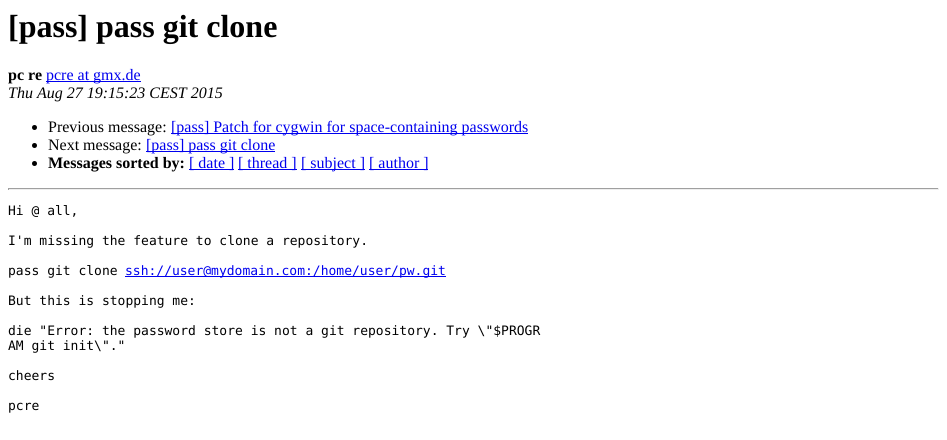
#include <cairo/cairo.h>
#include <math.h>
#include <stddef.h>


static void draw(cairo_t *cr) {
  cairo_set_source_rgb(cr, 1, 1, 1);
  cairo_paint(cr);
  cairo_set_source_rgb(cr, 0, 0, 238 / 255.0);
  cairo_rectangle(cr, 46, 81, 95, 1);
  cairo_fill(cr);
  cairo_set_source_rgb(cr, 0, 0, 0);
  cairo_arc(cr, 34.5, 127.5, 2.5, 0, 2 * M_PI);
  cairo_fill(cr);
  cairo_set_source_rgb(cr, 0, 0, 238 / 255.0);
  cairo_rectangle(cr, 171, 133, 357, 1);
  cairo_fill(cr);
  cairo_set_source_rgb(cr, 0, 0, 0);
  cairo_arc(cr, 34.5, 145.5, 2.5, 0, 2 * M_PI);
  cairo_fill(cr);
  cairo_set_source_rgb(cr, 0, 0, 238 / 255.0);
  cairo_rectangle(cr, 146, 151, 129, 1);
  cairo_fill(cr);
  cairo_set_source_rgb(cr, 0, 0, 0);
  cairo_arc(cr, 34.5, 163.5, 2.5, 0, 2 * M_PI);
  cairo_fill(cr);
  cairo_set_source_rgb(cr, 0, 0, 238 / 255.0);
  cairo_rectangle(cr, 189, 169, 45, 1);
  cairo_fill(cr);
  cairo_rectangle(cr, 238, 169, 59, 1);
  cairo_fill(cr);
  cairo_rectangle(cr, 301, 169, 64, 1);
  cairo_fill(cr);
  cairo_rectangle(cr, 369, 169, 59, 1);
  cairo_fill(cr);
  cairo_set_source_rgb(cr, 159 / 255.0, 159 / 255.0, 159 / 255.0);
  cairo_rectangle(cr, 8, 188, 931, 1);
  cairo_fill(cr);
  cairo_set_source_rgb(cr, 238 / 255.0, 238 / 255.0, 238 / 255.0);
  cairo_rectangle(cr, 938, 188, 1, 2);
  cairo_fill(cr);
  cairo_rectangle(cr, 8, 189, 931, 1);
  cairo_fill(cr);
  cairo_set_source_rgb(cr, 159 / 255.0, 159 / 255.0, 159 / 255.0);
  cairo_rectangle(cr, 8, 188, 1, 2);
  cairo_fill(cr);
  cairo_set_source_rgb(cr, 0, 0, 238 / 255.0);
  cairo_rectangle(cr, 125, 276, 321, 1);
  cairo_fill(cr);
  cairo_select_font_face(cr, "Liberation Serif", CAIRO_FONT_SLANT_NORMAL, CAIRO_FONT_WEIGHT_BOLD);
  cairo_set_font_size(cr, 32);
  cairo_set_source_rgb(cr, 0, 0, 0);
  cairo_move_to(cr, 8, 37);
  cairo_show_text(cr, "[pass] pass git clone");
  cairo_set_font_size(cr, 16);
  cairo_move_to(cr, 8, 80);
  cairo_show_text(cr, "pc re");
  cairo_select_font_face(cr, "Liberation Serif", CAIRO_FONT_SLANT_NORMAL, CAIRO_FONT_WEIGHT_NORMAL);
  cairo_set_source_rgb(cr, 0, 0, 238 / 255.0);
  cairo_move_to(cr, 46, 80);
  cairo_show_text(cr, "pcre at gmx.de");
  cairo_select_font_face(cr, "Liberation Serif", CAIRO_FONT_SLANT_ITALIC, CAIRO_FONT_WEIGHT_NORMAL);
  cairo_set_source_rgb(cr, 0, 0, 0);
  cairo_move_to(cr, 8, 98);
  cairo_show_text(cr, "Thu Aug 27 19:15:23 CEST 2015");
  cairo_select_font_face(cr, "Liberation Serif", CAIRO_FONT_SLANT_NORMAL, CAIRO_FONT_WEIGHT_NORMAL);
  cairo_move_to(cr, 48, 132);
  cairo_show_text(cr, "Previous message:");
  cairo_set_source_rgb(cr, 0, 0, 238 / 255.0);
  cairo_move_to(cr, 171, 132);
  cairo_show_text(cr, "[pass] Patch for cygwin for space-containing passwords");
  cairo_set_source_rgb(cr, 0, 0, 0);
  cairo_move_to(cr, 48, 150);
  cairo_show_text(cr, "Next message:");
  cairo_set_source_rgb(cr, 0, 0, 238 / 255.0);
  cairo_move_to(cr, 146, 150);
  cairo_show_text(cr, "[pass] pass git clone");
  cairo_select_font_face(cr, "Liberation Serif", CAIRO_FONT_SLANT_NORMAL, CAIRO_FONT_WEIGHT_BOLD);
  cairo_set_source_rgb(cr, 0, 0, 0);
  cairo_move_to(cr, 48, 168);
  cairo_show_text(cr, "Messages sorted by:");
  cairo_select_font_face(cr, "Liberation Serif", CAIRO_FONT_SLANT_NORMAL, CAIRO_FONT_WEIGHT_NORMAL);
  cairo_set_source_rgb(cr, 0, 0, 238 / 255.0);
  cairo_move_to(cr, 189, 168);
  cairo_show_text(cr, "[ date ]");
  cairo_move_to(cr, 238, 168);
  cairo_show_text(cr, "[ thread ]");
  cairo_move_to(cr, 301, 168);
  cairo_show_text(cr, "[ subject ]");
  cairo_move_to(cr, 369, 168);
  cairo_show_text(cr, "[ author ]");
  cairo_select_font_face(cr, "DejaVu Sans Mono", CAIRO_FONT_SLANT_NORMAL, CAIRO_FONT_WEIGHT_NORMAL);
  cairo_set_font_size(cr, 13);
  cairo_set_source_rgb(cr, 0, 0, 0);
  cairo_move_to(cr, 8, 215);
  cairo_show_text(cr, "Hi @ all,");
  cairo_move_to(cr, 8, 245);
  cairo_show_text(cr, "I'm missing the feature to clone a repository.");
  cairo_move_to(cr, 8, 275);
  cairo_show_text(cr, "pass git clone");
  cairo_set_source_rgb(cr, 0, 0, 238 / 255.0);
  cairo_move_to(cr, 125, 275);
  cairo_show_text(cr, "ssh://user@mydomain.com:/home/user/pw.git");
  cairo_set_source_rgb(cr, 0, 0, 0);
  cairo_move_to(cr, 8, 305);
  cairo_show_text(cr, "But this is stopping me:");
  cairo_move_to(cr, 8, 335);
  cairo_show_text(cr, "die \"Error: the password store is not a git repository. Try \\\"$PROGR");
  cairo_move_to(cr, 8, 350);
  cairo_show_text(cr, "AM git init\\\".\"");
  cairo_move_to(cr, 8, 380);
  cairo_show_text(cr, "cheers");
  cairo_move_to(cr, 8, 410);
  cairo_show_text(cr, "pcre");
}

int main(void) {
  cairo_surface_t *surface = cairo_image_surface_create(CAIRO_FORMAT_RGB24, 947, 440);
  cairo_t *cr = cairo_create(surface);
  cairo_font_options_t *options = cairo_font_options_create();
  cairo_font_options_set_hint_metrics(options, CAIRO_HINT_METRICS_OFF);
  cairo_font_options_set_hint_style(options, CAIRO_HINT_STYLE_NONE);
  cairo_set_font_options(cr, options);
  cairo_set_miter_limit(cr, 4);
  draw(cr);
  cairo_surface_write_to_png(surface, "out.png");
  cairo_font_options_destroy(options);
  cairo_destroy(cr);
  cairo_surface_destroy(surface);
  return 0;
}
